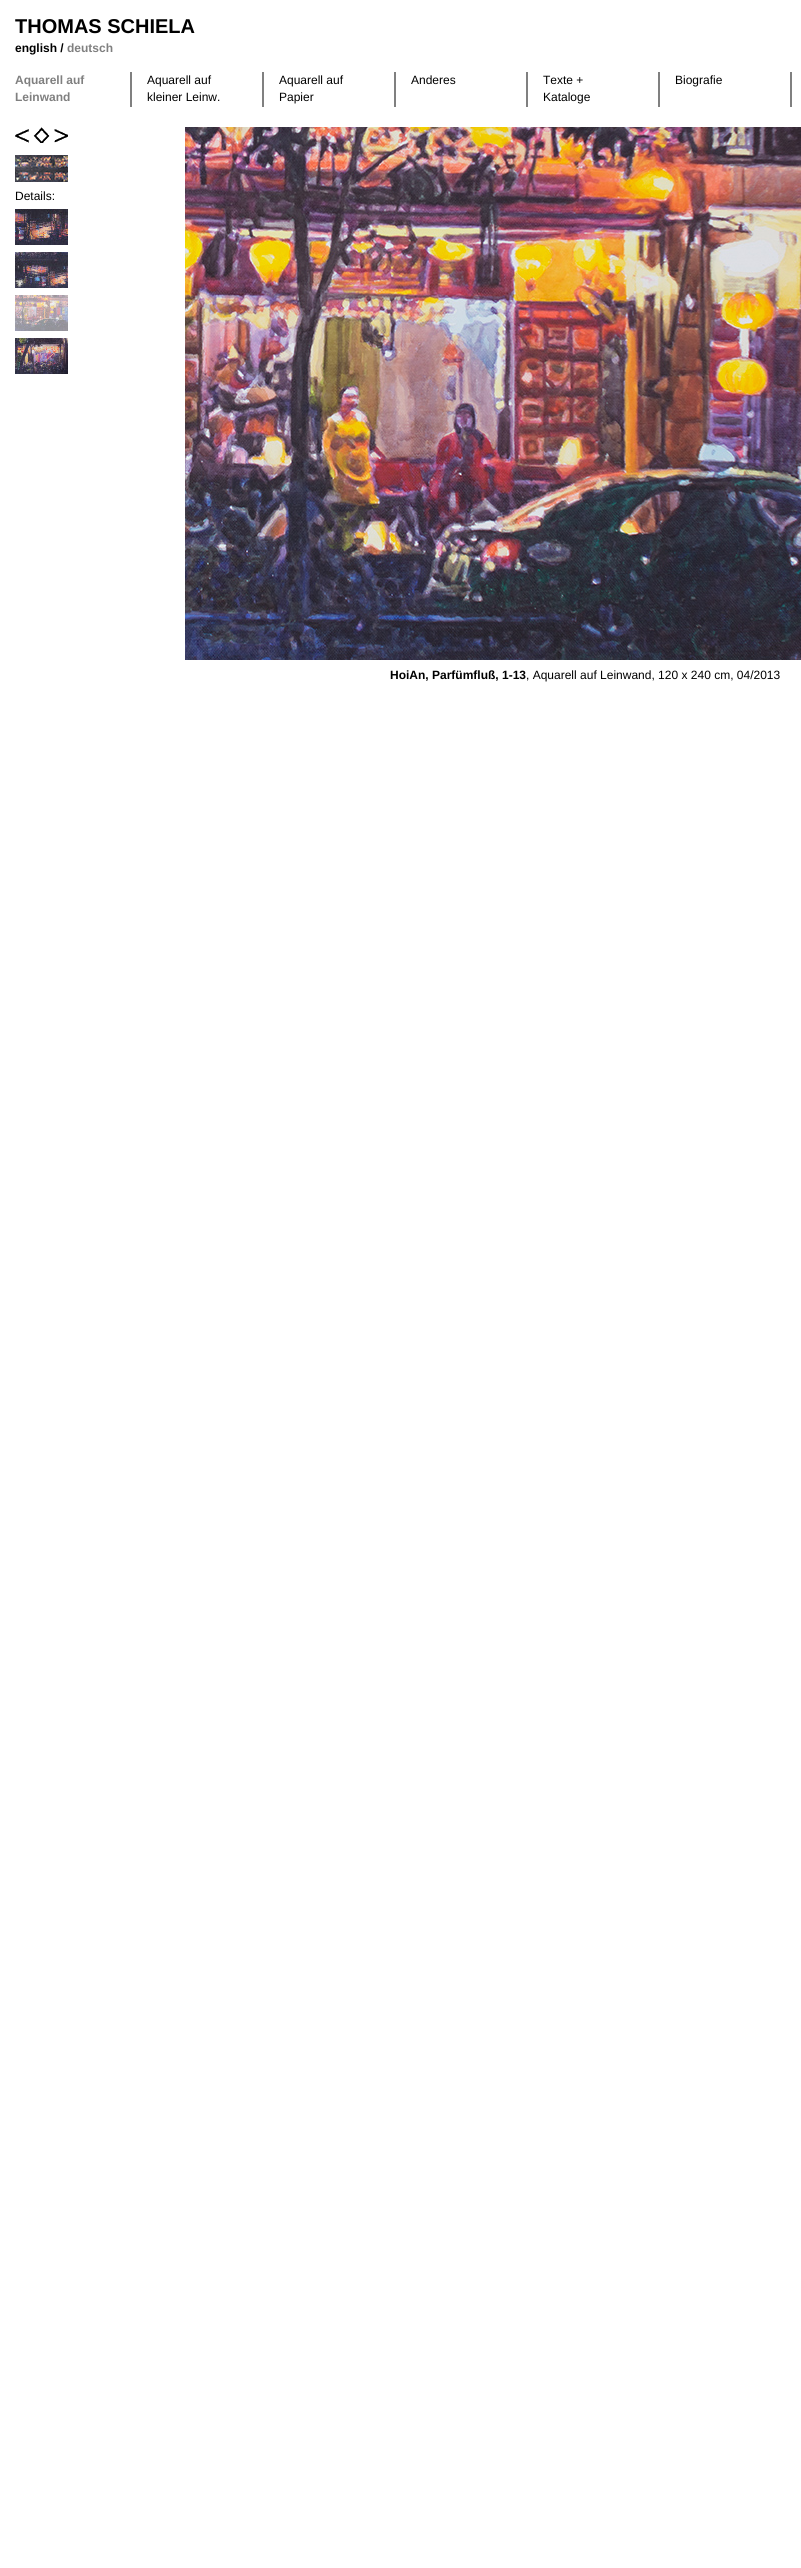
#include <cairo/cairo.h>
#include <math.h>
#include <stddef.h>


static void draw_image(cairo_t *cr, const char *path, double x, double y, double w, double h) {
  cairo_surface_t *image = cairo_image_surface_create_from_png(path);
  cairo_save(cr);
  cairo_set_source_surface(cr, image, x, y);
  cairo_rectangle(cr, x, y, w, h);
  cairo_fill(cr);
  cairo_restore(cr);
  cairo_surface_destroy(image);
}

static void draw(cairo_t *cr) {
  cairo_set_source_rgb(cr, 1, 1, 1);
  cairo_paint(cr);
  cairo_set_source_rgb(cr, 128 / 255.0, 128 / 255.0, 128 / 255.0);
  cairo_rectangle(cr, 130, 72, 2, 35);
  cairo_fill(cr);
  cairo_rectangle(cr, 262, 72, 2, 35);
  cairo_fill(cr);
  cairo_rectangle(cr, 394, 72, 2, 35);
  cairo_fill(cr);
  cairo_rectangle(cr, 526, 72, 2, 35);
  cairo_fill(cr);
  cairo_rectangle(cr, 658, 72, 2, 35);
  cairo_fill(cr);
  cairo_rectangle(cr, 790, 72, 2, 35);
  cairo_fill(cr);
  draw_image(cr, "images/1.png", 15, 129, 14, 14);
  draw_image(cr, "images/2.png", 33, 127, 17, 16);
  draw_image(cr, "images/3.png", 54, 129, 14, 14);
  draw_image(cr, "images/4.png", 15, 155, 53, 27);
  draw_image(cr, "images/5.png", 15, 209, 53, 36);
  draw_image(cr, "images/6.png", 15, 252, 53, 36);
  draw_image(cr, "images/7.png", 15, 295, 53, 36);
  draw_image(cr, "images/8.png", 15, 338, 53, 36);
  draw_image(cr, "images/9.png", 185, 127, 616, 533);
  cairo_select_font_face(cr, "Liberation Sans", CAIRO_FONT_SLANT_NORMAL, CAIRO_FONT_WEIGHT_BOLD);
  cairo_set_font_size(cr, 20);
  cairo_set_source_rgb(cr, 0, 0, 0);
  cairo_move_to(cr, 15, 33);
  cairo_show_text(cr, "THOMAS SCHIELA");
  cairo_set_font_size(cr, 12);
  cairo_move_to(cr, 15, 52);
  cairo_show_text(cr, "english /");
  cairo_set_source_rgb(cr, 128 / 255.0, 128 / 255.0, 128 / 255.0);
  cairo_move_to(cr, 67, 52);
  cairo_show_text(cr, "deutsch");
  cairo_move_to(cr, 15, 84);
  cairo_show_text(cr, "Aquarell auf");
  cairo_move_to(cr, 15, 101);
  cairo_show_text(cr, "Leinwand");
  cairo_select_font_face(cr, "Liberation Sans", CAIRO_FONT_SLANT_NORMAL, CAIRO_FONT_WEIGHT_NORMAL);
  cairo_set_source_rgb(cr, 0, 0, 0);
  cairo_move_to(cr, 147, 84);
  cairo_show_text(cr, "Aquarell auf");
  cairo_move_to(cr, 147, 101);
  cairo_show_text(cr, "kleiner Leinw.");
  cairo_move_to(cr, 279, 84);
  cairo_show_text(cr, "Aquarell auf");
  cairo_move_to(cr, 279, 101);
  cairo_show_text(cr, "Papier");
  cairo_move_to(cr, 411, 84);
  cairo_show_text(cr, "Anderes");
  cairo_move_to(cr, 543, 84);
  cairo_show_text(cr, "Texte +");
  cairo_move_to(cr, 543, 101);
  cairo_show_text(cr, "Kataloge");
  cairo_move_to(cr, 675, 84);
  cairo_show_text(cr, "Biografie");
  cairo_move_to(cr, 15, 200);
  cairo_show_text(cr, "Details:");
  cairo_select_font_face(cr, "Liberation Sans", CAIRO_FONT_SLANT_NORMAL, CAIRO_FONT_WEIGHT_BOLD);
  cairo_move_to(cr, 390, 679);
  cairo_show_text(cr, "HoiAn, Parfümfluß, 1-13");
  cairo_select_font_face(cr, "Liberation Sans", CAIRO_FONT_SLANT_NORMAL, CAIRO_FONT_WEIGHT_NORMAL);
  cairo_move_to(cr, 526, 679);
  cairo_show_text(cr, ", Aquarell auf Leinwand, 120 x 240 cm, 04/2013");
}

int main(void) {
  cairo_surface_t *surface = cairo_image_surface_create(CAIRO_FORMAT_RGB24, 801, 2568);
  cairo_t *cr = cairo_create(surface);
  cairo_font_options_t *options = cairo_font_options_create();
  cairo_font_options_set_hint_metrics(options, CAIRO_HINT_METRICS_OFF);
  cairo_font_options_set_hint_style(options, CAIRO_HINT_STYLE_NONE);
  cairo_set_font_options(cr, options);
  cairo_set_miter_limit(cr, 4);
  draw(cr);
  cairo_surface_write_to_png(surface, "out.png");
  cairo_font_options_destroy(options);
  cairo_destroy(cr);
  cairo_surface_destroy(surface);
  return 0;
}
